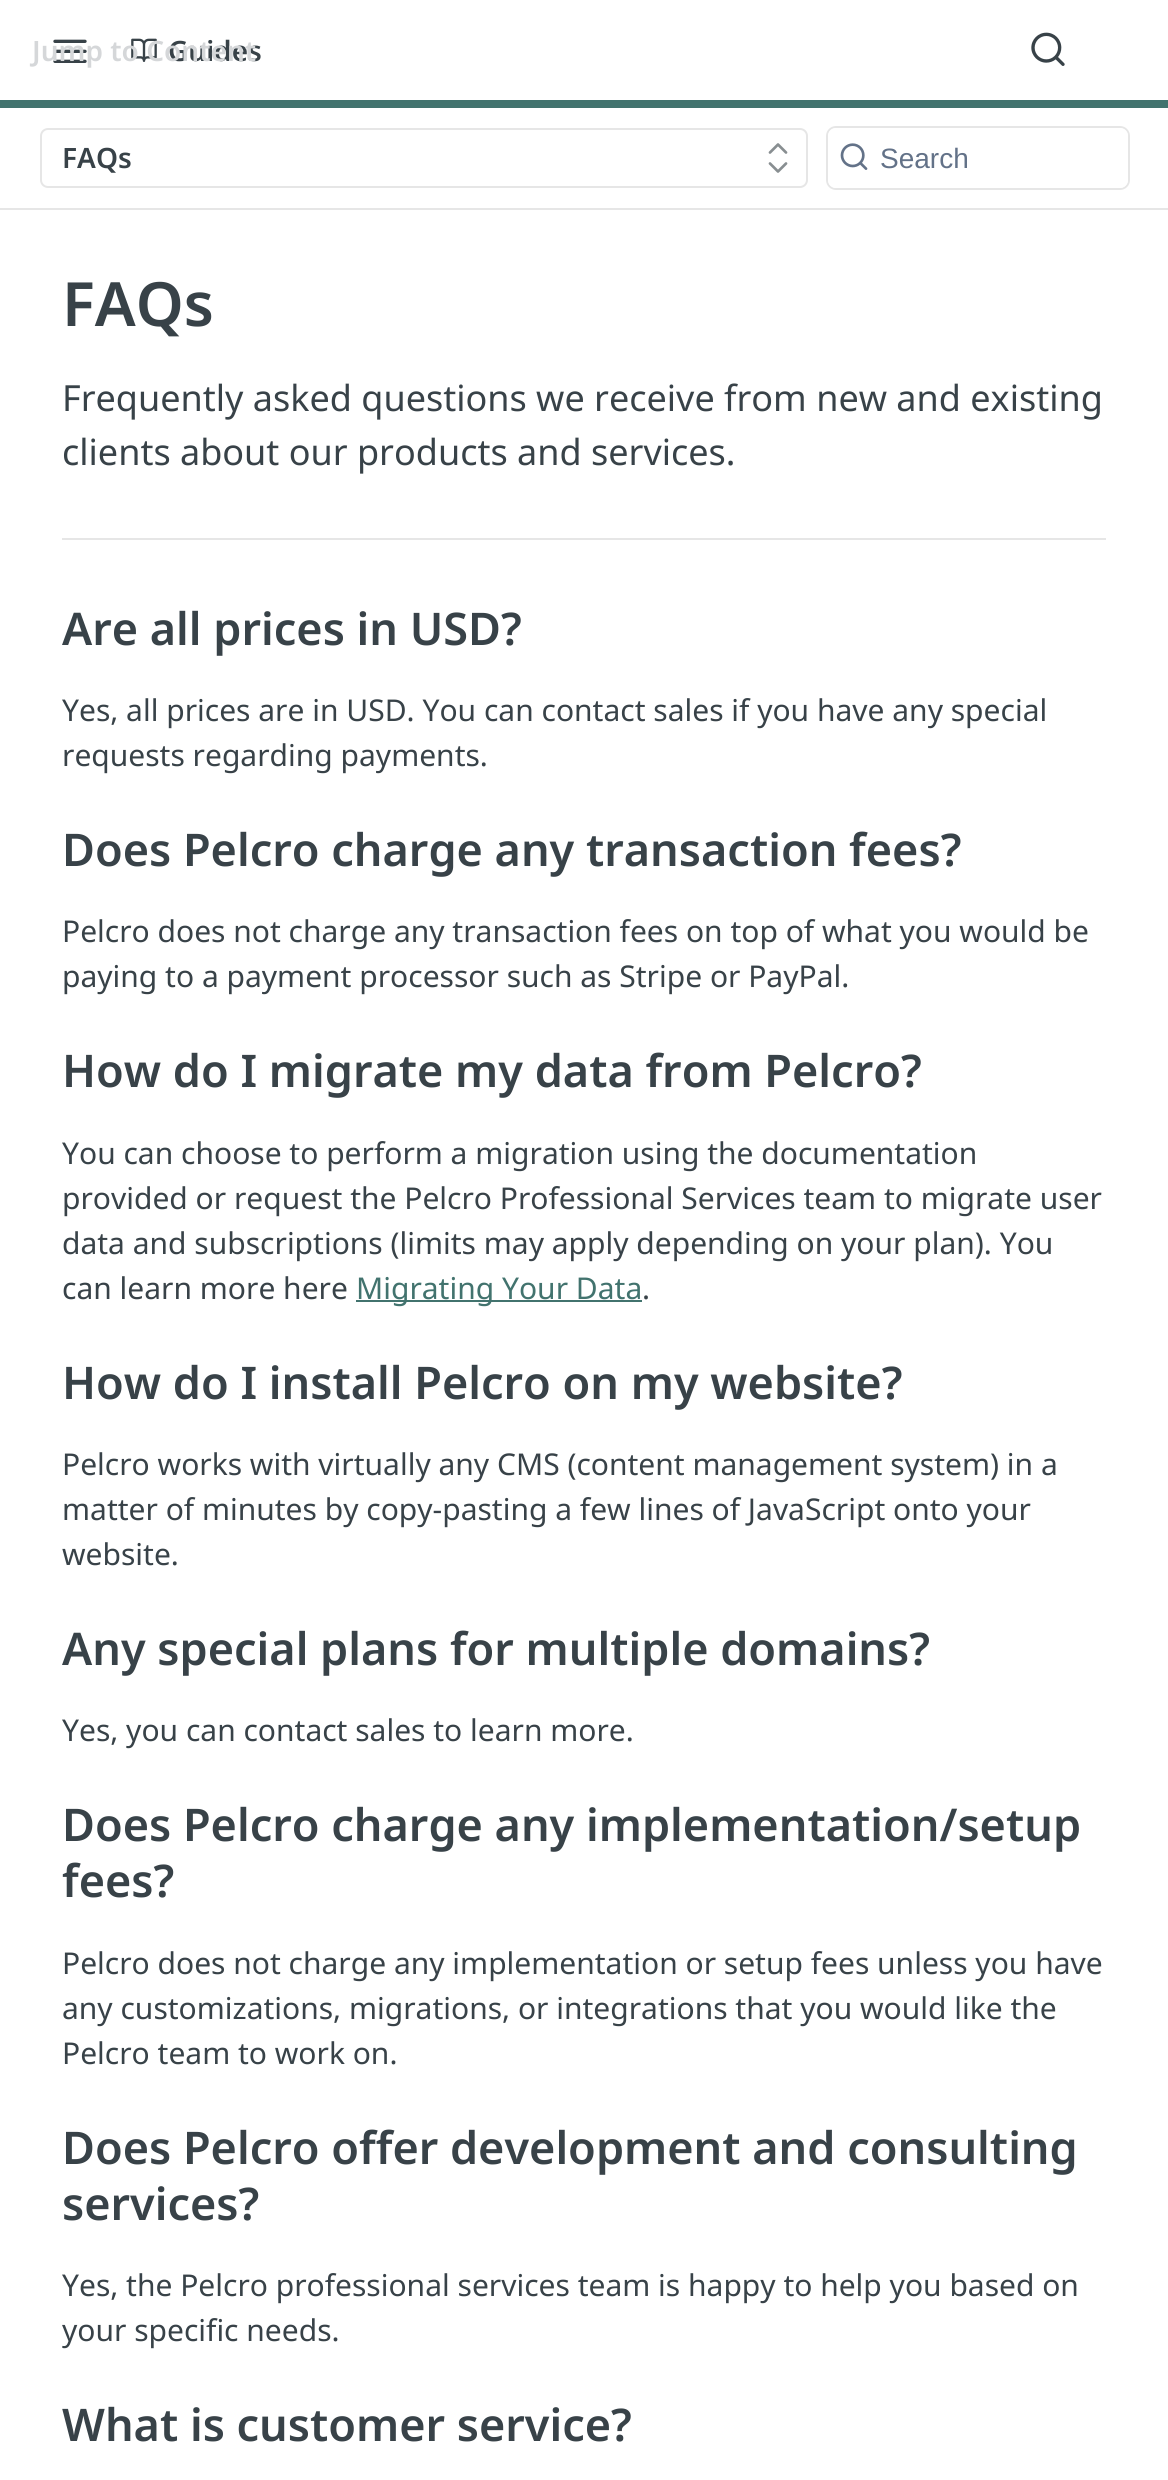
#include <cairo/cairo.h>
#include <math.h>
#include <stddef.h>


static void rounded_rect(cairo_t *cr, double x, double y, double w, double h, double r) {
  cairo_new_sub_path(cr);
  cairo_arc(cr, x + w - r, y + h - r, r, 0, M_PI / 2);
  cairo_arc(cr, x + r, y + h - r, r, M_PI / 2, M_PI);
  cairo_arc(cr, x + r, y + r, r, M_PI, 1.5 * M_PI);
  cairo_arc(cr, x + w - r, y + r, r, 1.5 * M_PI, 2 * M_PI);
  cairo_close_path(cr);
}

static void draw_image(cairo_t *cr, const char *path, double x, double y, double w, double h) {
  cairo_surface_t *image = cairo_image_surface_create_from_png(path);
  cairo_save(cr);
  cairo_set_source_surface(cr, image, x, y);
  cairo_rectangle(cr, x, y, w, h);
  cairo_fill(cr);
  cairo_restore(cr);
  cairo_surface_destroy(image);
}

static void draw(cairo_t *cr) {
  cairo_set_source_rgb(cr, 1, 1, 1);
  cairo_paint(cr);
  cairo_set_source_rgb(cr, 230 / 255.0, 230 / 255.0, 230 / 255.0);
  cairo_rectangle(cr, 0, 208, 1168, 2);
  cairo_fill(cr);
  cairo_set_source_rgb(cr, 66 / 255.0, 115 / 255.0, 110 / 255.0);
  cairo_rectangle(cr, 0, 100, 1168, 8);
  cairo_fill(cr);
  draw_image(cr, "images/1.png", 53, 39, 34, 24);
  draw_image(cr, "images/2.png", 131, 38, 26, 24);
  draw_image(cr, "images/3.png", 1031, 32, 34, 34);
  rounded_rect(cr, 41, 129, 766, 58, 7);
  cairo_set_source_rgb(cr, 230 / 255.0, 230 / 255.0, 230 / 255.0);
  cairo_stroke(cr);
  cairo_new_path(cr);
  cairo_move_to(cr, 770, 163.5);
  cairo_line_to(cr, 778, 171.5);
  cairo_line_to(cr, 786, 163.5);
  cairo_move_to(cr, 786, 152.5);
  cairo_line_to(cr, 778, 144.5);
  cairo_line_to(cr, 770, 152.5);
  cairo_set_source_rgb(cr, 136 / 255.0, 142 / 255.0, 145 / 255.0);
  cairo_set_line_width(cr, 2.7);
  cairo_set_line_cap(cr, CAIRO_LINE_CAP_ROUND);
  cairo_set_line_join(cr, CAIRO_LINE_JOIN_ROUND);
  cairo_stroke(cr);
  rounded_rect(cr, 827, 127, 302, 62, 9);
  cairo_set_source_rgb(cr, 230 / 255.0, 230 / 255.0, 230 / 255.0);
  cairo_set_line_width(cr, 2);
  cairo_set_line_cap(cr, CAIRO_LINE_CAP_BUTT);
  cairo_set_line_join(cr, CAIRO_LINE_JOIN_MITER);
  cairo_stroke(cr);
  cairo_set_source_rgb(cr, 1, 1, 1);
  rounded_rect(cr, 828, 128, 300, 60, 8);
  cairo_fill(cr);
  draw_image(cr, "images/4.png", 840, 143, 28, 27);
  cairo_set_source_rgb(cr, 230 / 255.0, 230 / 255.0, 230 / 255.0);
  cairo_rectangle(cr, 62, 538, 1044, 2);
  cairo_fill(cr);
  cairo_set_source_rgb(cr, 66 / 255.0, 115 / 255.0, 110 / 255.0);
  cairo_rectangle(cr, 356, 1300, 286, 2);
  cairo_fill(cr);
  cairo_select_font_face(cr, "Noto Sans SemiBold", CAIRO_FONT_SLANT_NORMAL, CAIRO_FONT_WEIGHT_NORMAL);
  cairo_set_font_size(cr, 28);
  cairo_set_source_rgb(cr, 56 / 255.0, 66 / 255.0, 72 / 255.0);
  cairo_move_to(cr, 168, 61);
  cairo_show_text(cr, "Guides");
  cairo_set_source_rgb(cr, 213 / 255.0, 215 / 255.0, 217 / 255.0);
  cairo_move_to(cr, 32, 61);
  cairo_show_text(cr, "Jump to Content");
  cairo_set_source_rgb(cr, 56 / 255.0, 66 / 255.0, 72 / 255.0);
  cairo_move_to(cr, 62, 168);
  cairo_show_text(cr, "FAQs");
  cairo_select_font_face(cr, "Liberation Sans", CAIRO_FONT_SLANT_NORMAL, CAIRO_FONT_WEIGHT_NORMAL);
  cairo_set_source_rgb(cr, 99 / 255.0, 114 / 255.0, 136 / 255.0);
  cairo_move_to(cr, 880, 168);
  cairo_show_text(cr, "Search");
  cairo_select_font_face(cr, "Noto Sans SemiBold", CAIRO_FONT_SLANT_NORMAL, CAIRO_FONT_WEIGHT_NORMAL);
  cairo_set_font_size(cr, 61);
  cairo_set_source_rgb(cr, 56 / 255.0, 66 / 255.0, 72 / 255.0);
  cairo_move_to(cr, 62, 326);
  cairo_show_text(cr, "FAQs");
  cairo_select_font_face(cr, "Noto Sans", CAIRO_FONT_SLANT_NORMAL, CAIRO_FONT_WEIGHT_NORMAL);
  cairo_set_font_size(cr, 36);
  cairo_move_to(cr, 62, 411);
  cairo_show_text(cr, "Frequently asked questions we receive from new and existing");
  cairo_move_to(cr, 62, 465);
  cairo_show_text(cr, "clients about our products and services.");
  cairo_select_font_face(cr, "Noto Sans SemiBold", CAIRO_FONT_SLANT_NORMAL, CAIRO_FONT_WEIGHT_NORMAL);
  cairo_set_font_size(cr, 45);
  cairo_move_to(cr, 62, 645);
  cairo_show_text(cr, "Are all prices in USD?");
  cairo_select_font_face(cr, "Noto Sans", CAIRO_FONT_SLANT_NORMAL, CAIRO_FONT_WEIGHT_NORMAL);
  cairo_set_font_size(cr, 30);
  cairo_move_to(cr, 62, 721);
  cairo_show_text(cr, "Yes, all prices are in USD. You can contact sales if you have any special");
  cairo_move_to(cr, 62, 766);
  cairo_show_text(cr, "requests regarding payments.");
  cairo_select_font_face(cr, "Noto Sans SemiBold", CAIRO_FONT_SLANT_NORMAL, CAIRO_FONT_WEIGHT_NORMAL);
  cairo_set_font_size(cr, 45);
  cairo_move_to(cr, 62, 866);
  cairo_show_text(cr, "Does Pelcro charge any transaction fees?");
  cairo_select_font_face(cr, "Noto Sans", CAIRO_FONT_SLANT_NORMAL, CAIRO_FONT_WEIGHT_NORMAL);
  cairo_set_font_size(cr, 30);
  cairo_move_to(cr, 62, 942);
  cairo_show_text(cr, "Pelcro does not charge any transaction fees on top of what you would be");
  cairo_move_to(cr, 62, 987);
  cairo_show_text(cr, "paying to a payment processor such as Stripe or PayPal.");
  cairo_select_font_face(cr, "Noto Sans SemiBold", CAIRO_FONT_SLANT_NORMAL, CAIRO_FONT_WEIGHT_NORMAL);
  cairo_set_font_size(cr, 45);
  cairo_move_to(cr, 62, 1087);
  cairo_show_text(cr, "How do I migrate my data from Pelcro?");
  cairo_select_font_face(cr, "Noto Sans", CAIRO_FONT_SLANT_NORMAL, CAIRO_FONT_WEIGHT_NORMAL);
  cairo_set_font_size(cr, 30);
  cairo_move_to(cr, 62, 1164);
  cairo_show_text(cr, "You can choose to perform a migration using the documentation");
  cairo_move_to(cr, 62, 1209);
  cairo_show_text(cr, "provided or request the Pelcro Professional Services team to migrate user");
  cairo_move_to(cr, 62, 1254);
  cairo_show_text(cr, "data and subscriptions (limits may apply depending on your plan). You");
  cairo_move_to(cr, 62, 1299);
  cairo_show_text(cr, "can learn more here");
  cairo_set_source_rgb(cr, 66 / 255.0, 115 / 255.0, 110 / 255.0);
  cairo_move_to(cr, 356, 1299);
  cairo_show_text(cr, "Migrating Your Data");
  cairo_set_source_rgb(cr, 56 / 255.0, 66 / 255.0, 72 / 255.0);
  cairo_move_to(cr, 642, 1299);
  cairo_show_text(cr, ".");
  cairo_select_font_face(cr, "Noto Sans SemiBold", CAIRO_FONT_SLANT_NORMAL, CAIRO_FONT_WEIGHT_NORMAL);
  cairo_set_font_size(cr, 45);
  cairo_move_to(cr, 62, 1399);
  cairo_show_text(cr, "How do I install Pelcro on my website?");
  cairo_select_font_face(cr, "Noto Sans", CAIRO_FONT_SLANT_NORMAL, CAIRO_FONT_WEIGHT_NORMAL);
  cairo_set_font_size(cr, 30);
  cairo_move_to(cr, 62, 1475);
  cairo_show_text(cr, "Pelcro works with virtually any CMS (content management system) in a");
  cairo_move_to(cr, 62, 1520);
  cairo_show_text(cr, "matter of minutes by copy-pasting a few lines of JavaScript onto your");
  cairo_move_to(cr, 62, 1565);
  cairo_show_text(cr, "website.");
  cairo_select_font_face(cr, "Noto Sans SemiBold", CAIRO_FONT_SLANT_NORMAL, CAIRO_FONT_WEIGHT_NORMAL);
  cairo_set_font_size(cr, 45);
  cairo_move_to(cr, 62, 1665);
  cairo_show_text(cr, "Any special plans for multiple domains?");
  cairo_select_font_face(cr, "Noto Sans", CAIRO_FONT_SLANT_NORMAL, CAIRO_FONT_WEIGHT_NORMAL);
  cairo_set_font_size(cr, 30);
  cairo_move_to(cr, 62, 1741);
  cairo_show_text(cr, "Yes, you can contact sales to learn more.");
  cairo_select_font_face(cr, "Noto Sans SemiBold", CAIRO_FONT_SLANT_NORMAL, CAIRO_FONT_WEIGHT_NORMAL);
  cairo_set_font_size(cr, 45);
  cairo_move_to(cr, 62, 1841);
  cairo_show_text(cr, "Does Pelcro charge any implementation/setup");
  cairo_move_to(cr, 62, 1897);
  cairo_show_text(cr, "fees?");
  cairo_select_font_face(cr, "Noto Sans", CAIRO_FONT_SLANT_NORMAL, CAIRO_FONT_WEIGHT_NORMAL);
  cairo_set_font_size(cr, 30);
  cairo_move_to(cr, 62, 1974);
  cairo_show_text(cr, "Pelcro does not charge any implementation or setup fees unless you have");
  cairo_move_to(cr, 62, 2019);
  cairo_show_text(cr, "any customizations, migrations, or integrations that you would like the");
  cairo_move_to(cr, 62, 2064);
  cairo_show_text(cr, "Pelcro team to work on.");
  cairo_select_font_face(cr, "Noto Sans SemiBold", CAIRO_FONT_SLANT_NORMAL, CAIRO_FONT_WEIGHT_NORMAL);
  cairo_set_font_size(cr, 45);
  cairo_move_to(cr, 62, 2164);
  cairo_show_text(cr, "Does Pelcro offer development and consulting");
  cairo_move_to(cr, 62, 2220);
  cairo_show_text(cr, "services?");
  cairo_select_font_face(cr, "Noto Sans", CAIRO_FONT_SLANT_NORMAL, CAIRO_FONT_WEIGHT_NORMAL);
  cairo_set_font_size(cr, 30);
  cairo_move_to(cr, 62, 2296);
  cairo_show_text(cr, "Yes, the Pelcro professional services team is happy to help you based on");
  cairo_move_to(cr, 62, 2341);
  cairo_show_text(cr, "your specific needs.");
  cairo_select_font_face(cr, "Noto Sans SemiBold", CAIRO_FONT_SLANT_NORMAL, CAIRO_FONT_WEIGHT_NORMAL);
  cairo_set_font_size(cr, 45);
  cairo_move_to(cr, 62, 2441);
  cairo_show_text(cr, "What is customer service?");
}

int main(void) {
  cairo_surface_t *surface = cairo_image_surface_create(CAIRO_FORMAT_RGB24, 1168, 2480);
  cairo_t *cr = cairo_create(surface);
  cairo_font_options_t *options = cairo_font_options_create();
  cairo_font_options_set_hint_metrics(options, CAIRO_HINT_METRICS_OFF);
  cairo_font_options_set_hint_style(options, CAIRO_HINT_STYLE_NONE);
  cairo_set_font_options(cr, options);
  cairo_set_miter_limit(cr, 4);
  draw(cr);
  cairo_surface_write_to_png(surface, "out.png");
  cairo_font_options_destroy(options);
  cairo_destroy(cr);
  cairo_surface_destroy(surface);
  return 0;
}
